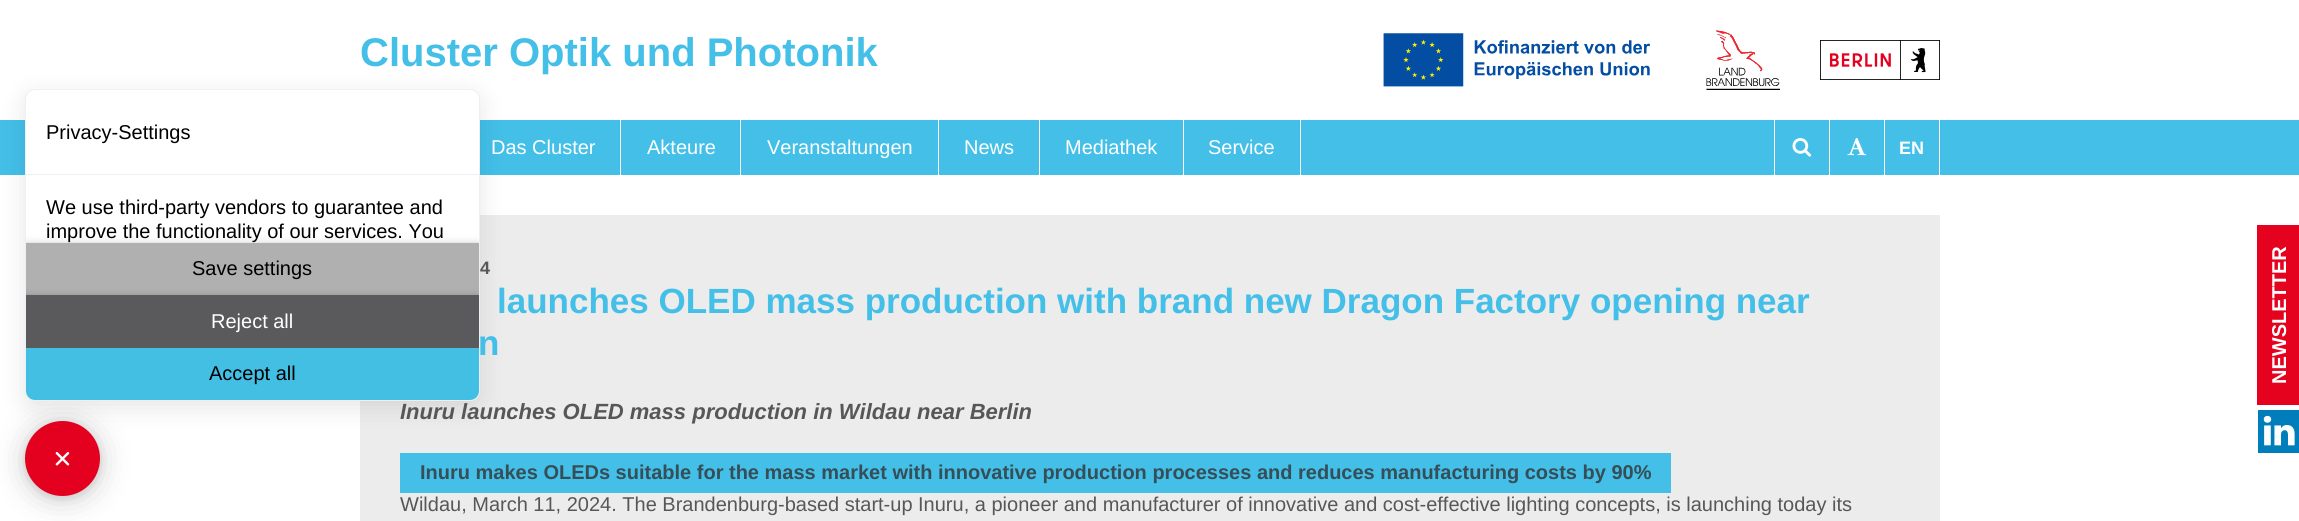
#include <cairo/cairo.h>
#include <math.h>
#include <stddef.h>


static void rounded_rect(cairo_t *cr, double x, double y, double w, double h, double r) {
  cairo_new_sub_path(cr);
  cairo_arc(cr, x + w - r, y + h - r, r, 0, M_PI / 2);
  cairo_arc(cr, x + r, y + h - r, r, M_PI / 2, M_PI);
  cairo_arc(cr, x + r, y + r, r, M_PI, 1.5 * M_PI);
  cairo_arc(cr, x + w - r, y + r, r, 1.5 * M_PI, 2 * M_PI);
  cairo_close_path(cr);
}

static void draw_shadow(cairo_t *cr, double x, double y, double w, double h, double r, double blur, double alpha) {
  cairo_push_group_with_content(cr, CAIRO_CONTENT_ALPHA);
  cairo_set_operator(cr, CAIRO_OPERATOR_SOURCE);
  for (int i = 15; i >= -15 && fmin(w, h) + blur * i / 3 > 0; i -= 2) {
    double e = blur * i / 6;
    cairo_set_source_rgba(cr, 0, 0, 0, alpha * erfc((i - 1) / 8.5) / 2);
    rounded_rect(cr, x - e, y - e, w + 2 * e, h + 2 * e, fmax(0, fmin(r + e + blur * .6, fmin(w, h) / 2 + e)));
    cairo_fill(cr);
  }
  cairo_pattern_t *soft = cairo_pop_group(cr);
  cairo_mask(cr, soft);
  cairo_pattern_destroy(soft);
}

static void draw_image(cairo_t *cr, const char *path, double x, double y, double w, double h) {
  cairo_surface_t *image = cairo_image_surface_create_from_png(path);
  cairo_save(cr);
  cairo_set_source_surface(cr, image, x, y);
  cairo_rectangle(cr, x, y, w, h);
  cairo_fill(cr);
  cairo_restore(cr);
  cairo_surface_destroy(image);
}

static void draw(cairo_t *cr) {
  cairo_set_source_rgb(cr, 1, 1, 1);
  cairo_paint(cr);
  cairo_set_source_rgb(cr, 0, 0, 0);
  draw_shadow(cr, 25, 424, 75, 75, 37.5, 15, 0.2);
  draw_shadow(cr, 25, 423, 75, 75, 37.5, 4, 0.1);
  cairo_set_source_rgb(cr, 228 / 255.0, 0, 31 / 255.0);
  cairo_arc(cr, 62.5, 458.5, 37.5, 0, 2 * M_PI);
  cairo_fill(cr);
  cairo_set_source_rgb(cr, 67 / 255.0, 191 / 255.0, 232 / 255.0);
  cairo_rectangle(cr, 0, 120, 2299, 55);
  cairo_fill(cr);
  cairo_set_source_rgb(cr, 236 / 255.0, 236 / 255.0, 237 / 255.0);
  cairo_rectangle(cr, 360, 215, 1580, 306);
  cairo_fill(cr);
  cairo_set_source_rgb(cr, 0, 0, 0);
  draw_shadow(cr, 25, 95, 455, 313, 10, 12.5, 0.1);
  cairo_set_source_rgb(cr, 1, 1, 1);
  rounded_rect(cr, 25.5, 89.5, 454, 311, 9.5);
  cairo_fill_preserve(cr);
  cairo_set_source_rgb(cr, 234 / 255.0, 240 / 255.0, 246 / 255.0);
  cairo_set_line_width(cr, 1);
  cairo_stroke(cr);
  cairo_rectangle(cr, 26, 174, 453, 1);
  cairo_fill(cr);
  cairo_save(cr);
  rounded_rect(cr, 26, 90, 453, 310, 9);
  cairo_clip(cr);
  cairo_set_source_rgb(cr, 32 / 255.0, 33 / 255.0, 36 / 255.0);
  draw_shadow(cr, 26, 244, 453, 52, 0, 4, 0.28);
  cairo_restore(cr);
  cairo_set_source_rgb(cr, 176 / 255.0, 176 / 255.0, 176 / 255.0);
  cairo_rectangle(cr, 26, 243, 453, 52);
  cairo_fill(cr);
  cairo_save(cr);
  rounded_rect(cr, 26, 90, 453, 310, 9);
  cairo_clip(cr);
  cairo_set_source_rgb(cr, 32 / 255.0, 33 / 255.0, 36 / 255.0);
  draw_shadow(cr, 26, 296, 453, 53, 0, 4, 0.28);
  cairo_restore(cr);
  cairo_set_source_rgb(cr, 90 / 255.0, 90 / 255.0, 92 / 255.0);
  cairo_rectangle(cr, 26, 295, 453, 53);
  cairo_fill(cr);
  cairo_set_source_rgb(cr, 67 / 255.0, 191 / 255.0, 228 / 255.0);
  cairo_new_path(cr);
  cairo_move_to(cr, 26, 348);
  cairo_line_to(cr, 479, 348);
  cairo_line_to(cr, 479, 391);
  cairo_curve_to(cr, 479, 396, 475, 400, 470, 400);
  cairo_line_to(cr, 35, 400);
  cairo_curve_to(cr, 30, 400, 26, 396, 26, 391);
  cairo_close_path(cr);
  cairo_fill(cr);
  draw_image(cr, "images/1.png", 55, 452, 15, 14);
  draw_image(cr, "images/2.png", 1383, 33, 267, 54);
  draw_image(cr, "images/3.png", 1706, 30, 74, 60);
  draw_image(cr, "images/4.png", 1820, 40, 120, 40);
  cairo_set_source_rgb(cr, 1, 1, 1);
  cairo_rectangle(cr, 620, 120, 1, 55);
  cairo_fill(cr);
  cairo_rectangle(cr, 740, 120, 1, 55);
  cairo_fill(cr);
  cairo_rectangle(cr, 938, 120, 1, 55);
  cairo_fill(cr);
  cairo_rectangle(cr, 1039, 120, 1, 55);
  cairo_fill(cr);
  cairo_rectangle(cr, 1183, 120, 1, 55);
  cairo_fill(cr);
  cairo_rectangle(cr, 1300, 120, 1, 55);
  cairo_fill(cr);
  cairo_rectangle(cr, 1939, 120, 1, 55);
  cairo_fill(cr);
  cairo_rectangle(cr, 1774, 120, 1, 55);
  cairo_fill(cr);
  draw_image(cr, "images/5.png", 1792, 138, 20, 19);
  cairo_rectangle(cr, 1829, 120, 1, 55);
  cairo_fill(cr);
  draw_image(cr, "images/6.png", 1847, 138, 20, 18);
  cairo_rectangle(cr, 1884, 120, 1, 55);
  cairo_fill(cr);
  cairo_set_source_rgb(cr, 67 / 255.0, 191 / 255.0, 232 / 255.0);
  cairo_rectangle(cr, 400, 453, 1271, 40);
  cairo_fill(cr);
  cairo_set_source_rgb(cr, 228 / 255.0, 2 / 255.0, 31 / 255.0);
  cairo_rectangle(cr, 2257, 225, 42, 180);
  cairo_fill(cr);
  cairo_set_source_rgb(cr, 0, 126 / 255.0, 187 / 255.0);
  cairo_rectangle(cr, 2258, 410, 41, 43);
  cairo_fill(cr);
  draw_image(cr, "images/7.png", 2263, 415, 32, 31);
  cairo_select_font_face(cr, "Liberation Sans", CAIRO_FONT_SLANT_NORMAL, CAIRO_FONT_WEIGHT_NORMAL);
  cairo_set_font_size(cr, 20);
  cairo_set_source_rgb(cr, 0, 0, 0);
  cairo_move_to(cr, 46, 139);
  cairo_show_text(cr, "Privacy-Settings");
  cairo_move_to(cr, 46, 214);
  cairo_show_text(cr, "We use third-party vendors to guarantee and");
  cairo_move_to(cr, 46, 238);
  cairo_show_text(cr, "improve the functionality of our services. You");
  cairo_move_to(cr, 192, 275);
  cairo_show_text(cr, "Save settings");
  cairo_set_source_rgb(cr, 1, 1, 1);
  cairo_move_to(cr, 211, 328);
  cairo_show_text(cr, "Reject all");
  cairo_set_source_rgb(cr, 0, 0, 0);
  cairo_move_to(cr, 209, 380);
  cairo_show_text(cr, "Accept all");
  cairo_select_font_face(cr, "Liberation Sans", CAIRO_FONT_SLANT_NORMAL, CAIRO_FONT_WEIGHT_BOLD);
  cairo_set_font_size(cr, 40);
  cairo_set_source_rgb(cr, 67 / 255.0, 191 / 255.0, 232 / 255.0);
  cairo_move_to(cr, 360, 66);
  cairo_show_text(cr, "Cluster Optik und Photonik");
  cairo_select_font_face(cr, "Liberation Sans", CAIRO_FONT_SLANT_NORMAL, CAIRO_FONT_WEIGHT_NORMAL);
  cairo_set_font_size(cr, 20);
  cairo_set_source_rgb(cr, 1, 1, 1);
  cairo_move_to(cr, 491, 154);
  cairo_show_text(cr, "Das Cluster");
  cairo_move_to(cr, 647, 154);
  cairo_show_text(cr, "Akteure");
  cairo_move_to(cr, 767, 154);
  cairo_show_text(cr, "Veranstaltungen");
  cairo_move_to(cr, 964, 154);
  cairo_show_text(cr, "News");
  cairo_move_to(cr, 1065, 154);
  cairo_show_text(cr, "Mediathek");
  cairo_move_to(cr, 1208, 154);
  cairo_show_text(cr, "Service");
  cairo_select_font_face(cr, "Liberation Sans", CAIRO_FONT_SLANT_NORMAL, CAIRO_FONT_WEIGHT_BOLD);
  cairo_set_font_size(cr, 18);
  cairo_move_to(cr, 1899, 154);
  cairo_show_text(cr, "EN");
  cairo_set_source_rgb(cr, 87 / 255.0, 87 / 255.0, 88 / 255.0);
  cairo_move_to(cr, 480, 274);
  cairo_show_text(cr, "4");
  cairo_set_font_size(cr, 35);
  cairo_set_source_rgb(cr, 67 / 255.0, 191 / 255.0, 232 / 255.0);
  cairo_move_to(cr, 497, 313);
  cairo_show_text(cr, "launches OLED mass production with brand new Dragon Factory opening near");
  cairo_move_to(cr, 478, 355);
  cairo_show_text(cr, "n");
  cairo_select_font_face(cr, "Liberation Sans", CAIRO_FONT_SLANT_ITALIC, CAIRO_FONT_WEIGHT_BOLD);
  cairo_set_font_size(cr, 22);
  cairo_set_source_rgb(cr, 87 / 255.0, 87 / 255.0, 88 / 255.0);
  cairo_move_to(cr, 400, 419);
  cairo_show_text(cr, "Inuru launches OLED mass production in Wildau near Berlin");
  cairo_select_font_face(cr, "Liberation Sans", CAIRO_FONT_SLANT_NORMAL, CAIRO_FONT_WEIGHT_BOLD);
  cairo_set_font_size(cr, 20);
  cairo_set_source_rgb(cr, 53 / 255.0, 78 / 255.0, 87 / 255.0);
  cairo_move_to(cr, 420, 479);
  cairo_show_text(cr, "Inuru makes OLEDs suitable for the mass market with innovative production processes and reduces manufacturing costs by 90%");
  cairo_select_font_face(cr, "Liberation Sans", CAIRO_FONT_SLANT_NORMAL, CAIRO_FONT_WEIGHT_NORMAL);
  cairo_set_source_rgb(cr, 87 / 255.0, 87 / 255.0, 88 / 255.0);
  cairo_move_to(cr, 400, 511);
  cairo_show_text(cr, "Wildau, March 11, 2024. The Brandenburg-based start-up Inuru, a pioneer and manufacturer of innovative and cost-effective lighting concepts, is launching today its");
  cairo_select_font_face(cr, "Liberation Sans", CAIRO_FONT_SLANT_NORMAL, CAIRO_FONT_WEIGHT_BOLD);
  cairo_set_source_rgb(cr, 1, 1, 1);
  cairo_save(cr);
  cairo_translate(cr, 2286, 384);
  cairo_rotate(cr, -90 * M_PI / 180);
  cairo_move_to(cr, 0, 0);
  cairo_show_text(cr, "NEWSLETTER");
  cairo_restore(cr);
}

int main(void) {
  cairo_surface_t *surface = cairo_image_surface_create(CAIRO_FORMAT_RGB24, 2299, 521);
  cairo_t *cr = cairo_create(surface);
  cairo_font_options_t *options = cairo_font_options_create();
  cairo_font_options_set_hint_metrics(options, CAIRO_HINT_METRICS_OFF);
  cairo_font_options_set_hint_style(options, CAIRO_HINT_STYLE_NONE);
  cairo_set_font_options(cr, options);
  cairo_set_miter_limit(cr, 4);
  draw(cr);
  cairo_surface_write_to_png(surface, "out.png");
  cairo_font_options_destroy(options);
  cairo_destroy(cr);
  cairo_surface_destroy(surface);
  return 0;
}
